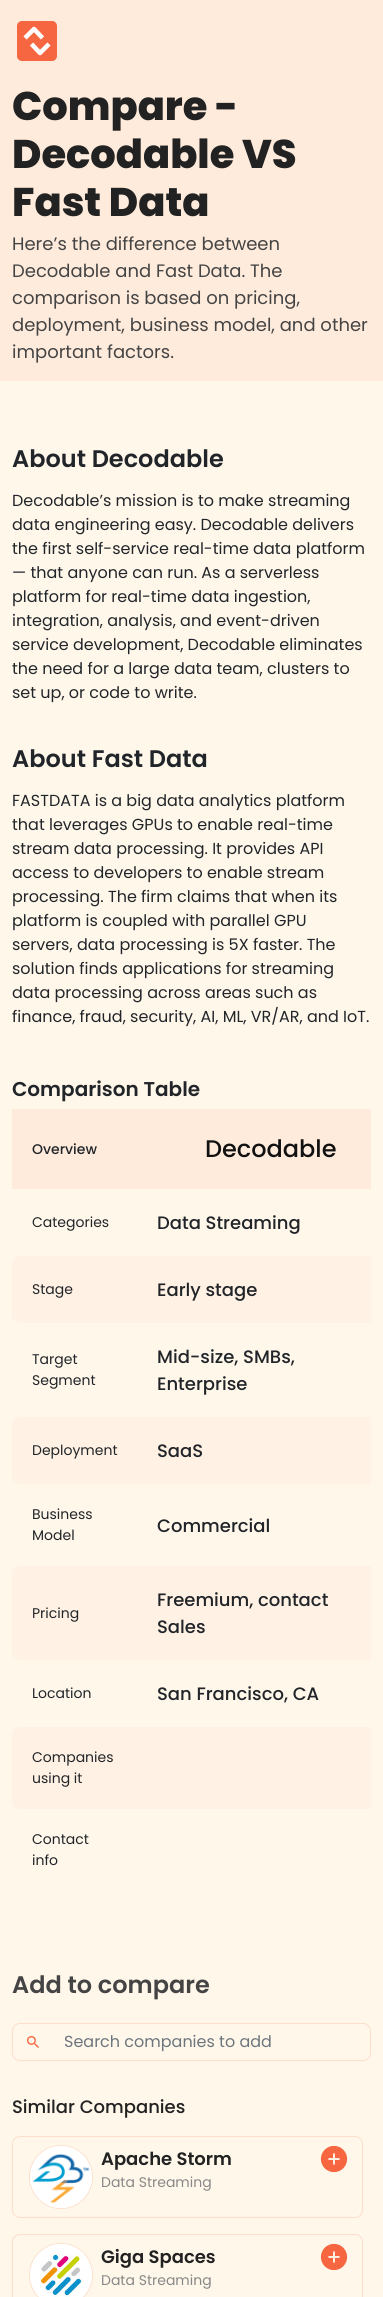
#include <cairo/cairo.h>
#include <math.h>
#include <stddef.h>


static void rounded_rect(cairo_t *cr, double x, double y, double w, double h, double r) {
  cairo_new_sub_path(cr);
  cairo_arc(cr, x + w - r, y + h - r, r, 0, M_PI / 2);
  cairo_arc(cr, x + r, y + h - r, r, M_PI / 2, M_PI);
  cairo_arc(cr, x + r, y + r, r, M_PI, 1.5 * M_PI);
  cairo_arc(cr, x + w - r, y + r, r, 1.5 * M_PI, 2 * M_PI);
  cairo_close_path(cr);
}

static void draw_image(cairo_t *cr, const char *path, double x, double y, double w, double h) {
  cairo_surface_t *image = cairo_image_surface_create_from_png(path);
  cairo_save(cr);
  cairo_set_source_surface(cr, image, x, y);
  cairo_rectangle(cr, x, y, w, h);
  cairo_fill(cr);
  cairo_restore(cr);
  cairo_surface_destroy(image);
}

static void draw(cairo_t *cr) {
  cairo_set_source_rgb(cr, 1, 247 / 255.0, 234 / 255.0);
  cairo_paint(cr);
  cairo_set_source_rgb(cr, 254 / 255.0, 235 / 255.0, 220 / 255.0);
  cairo_rectangle(cr, 0, 0, 383, 381);
  cairo_fill(cr);
  cairo_set_source_rgb(cr, 246 / 255.0, 102 / 255.0, 64 / 255.0);
  rounded_rect(cr, 17, 21, 40, 40, 5);
  cairo_fill(cr);
  cairo_new_path(cr);
  cairo_move_to(cr, 25, 38);
  cairo_line_to(cr, 34, 29);
  cairo_line_to(cr, 42.5, 38);
  cairo_move_to(cr, 49, 44);
  cairo_line_to(cr, 40, 53);
  cairo_line_to(cr, 31.5, 44);
  cairo_set_source_rgb(cr, 253 / 255.0, 253 / 255.0, 253 / 255.0);
  cairo_set_line_width(cr, 4.5);
  cairo_set_line_join(cr, CAIRO_LINE_JOIN_ROUND);
  cairo_stroke(cr);
  cairo_set_source_rgb(cr, 254 / 255.0, 235 / 255.0, 220 / 255.0);
  cairo_rectangle(cr, 12, 1109, 359, 80);
  cairo_fill(cr);
  cairo_set_source_rgb(cr, 1, 241 / 255.0, 227 / 255.0);
  cairo_new_path(cr);
  cairo_move_to(cr, 20, 1256);
  cairo_line_to(cr, 137, 1256);
  cairo_line_to(cr, 137, 1323);
  cairo_line_to(cr, 20, 1323);
  cairo_curve_to(cr, 15.5, 1323, 12, 1319.5, 12, 1315);
  cairo_line_to(cr, 12, 1264);
  cairo_curve_to(cr, 12, 1259.5, 15.5, 1256, 20, 1256);
  cairo_close_path(cr);
  cairo_fill(cr);
  cairo_rectangle(cr, 137, 1256, 234, 67);
  cairo_fill(cr);
  cairo_new_path(cr);
  cairo_move_to(cr, 20, 1417);
  cairo_line_to(cr, 137, 1417);
  cairo_line_to(cr, 137, 1484);
  cairo_line_to(cr, 20, 1484);
  cairo_curve_to(cr, 15.5, 1484, 12, 1480.5, 12, 1476);
  cairo_line_to(cr, 12, 1425);
  cairo_curve_to(cr, 12, 1420.5, 15.5, 1417, 20, 1417);
  cairo_close_path(cr);
  cairo_fill(cr);
  cairo_rectangle(cr, 137, 1417, 234, 67);
  cairo_fill(cr);
  cairo_new_path(cr);
  cairo_move_to(cr, 20, 1566);
  cairo_line_to(cr, 137, 1566);
  cairo_line_to(cr, 137, 1660);
  cairo_line_to(cr, 20, 1660);
  cairo_curve_to(cr, 15.5, 1660, 12, 1656.5, 12, 1652);
  cairo_line_to(cr, 12, 1574);
  cairo_curve_to(cr, 12, 1569.5, 15.5, 1566, 20, 1566);
  cairo_close_path(cr);
  cairo_fill(cr);
  cairo_rectangle(cr, 137, 1566, 234, 94);
  cairo_fill(cr);
  cairo_new_path(cr);
  cairo_move_to(cr, 20, 1727);
  cairo_line_to(cr, 137, 1727);
  cairo_line_to(cr, 137, 1809);
  cairo_line_to(cr, 20, 1809);
  cairo_curve_to(cr, 15.5, 1809, 12, 1805.5, 12, 1801);
  cairo_line_to(cr, 12, 1735);
  cairo_curve_to(cr, 12, 1730.5, 15.5, 1727, 20, 1727);
  cairo_close_path(cr);
  cairo_fill(cr);
  cairo_rectangle(cr, 137, 1727, 234, 82);
  cairo_fill(cr);
  rounded_rect(cr, 12.5, 2023.5, 358, 37, 7.5);
  cairo_set_source_rgb(cr, 253 / 255.0, 222 / 255.0, 204 / 255.0);
  cairo_set_line_width(cr, 1);
  cairo_set_line_join(cr, CAIRO_LINE_JOIN_MITER);
  cairo_stroke(cr);
  draw_image(cr, "images/1.png", 27, 2036, 12, 12);
  rounded_rect(cr, 12.5, 2136.5, 350, 81, 7.5);
  cairo_stroke(cr);
  cairo_set_source_rgb(cr, 1, 1, 1);
  cairo_arc(cr, 61, 2177, 31.5, 0, 2 * M_PI);
  cairo_fill_preserve(cr);
  cairo_set_source_rgb(cr, 253 / 255.0, 222 / 255.0, 204 / 255.0);
  cairo_stroke(cr);
  draw_image(cr, "images/2.png", 30, 2146, 62, 62);
  draw_image(cr, "images/3.png", 320, 2145, 28, 28);
  rounded_rect(cr, 12.5, 2234.5, 350, 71, 7.5);
  cairo_stroke(cr);
  cairo_set_source_rgb(cr, 1, 1, 1);
  cairo_arc(cr, 61, 2275, 31.5, 0, 2 * M_PI);
  cairo_fill_preserve(cr);
  cairo_set_source_rgb(cr, 253 / 255.0, 222 / 255.0, 204 / 255.0);
  cairo_stroke(cr);
  draw_image(cr, "images/4.png", 30, 2244, 62, 53);
  draw_image(cr, "images/3.png", 320, 2243, 28, 28);
  cairo_select_font_face(cr, "Poppins ExtraBold", CAIRO_FONT_SLANT_NORMAL, CAIRO_FONT_WEIGHT_NORMAL);
  cairo_set_font_size(cr, 40);
  cairo_set_source_rgb(cr, 34 / 255.0, 34 / 255.0, 34 / 255.0);
  cairo_move_to(cr, 12, 120);
  cairo_show_text(cr, "Compare -");
  cairo_move_to(cr, 12, 168);
  cairo_show_text(cr, "Decodable VS");
  cairo_move_to(cr, 12, 216);
  cairo_show_text(cr, "Fast Data");
  cairo_select_font_face(cr, "Poppins", CAIRO_FONT_SLANT_NORMAL, CAIRO_FONT_WEIGHT_NORMAL);
  cairo_set_font_size(cr, 18);
  cairo_set_source_rgb(cr, 68 / 255.0, 68 / 255.0, 68 / 255.0);
  cairo_move_to(cr, 12, 250);
  cairo_show_text(cr, "Here’s the difference between");
  cairo_move_to(cr, 12, 277);
  cairo_show_text(cr, "Decodable and Fast Data. The");
  cairo_move_to(cr, 12, 304);
  cairo_show_text(cr, "comparison is based on pricing,");
  cairo_move_to(cr, 12, 331);
  cairo_show_text(cr, "deployment, business model, and other");
  cairo_move_to(cr, 12, 358);
  cairo_show_text(cr, "important factors.");
  cairo_select_font_face(cr, "Poppins SemiBold", CAIRO_FONT_SLANT_NORMAL, CAIRO_FONT_WEIGHT_NORMAL);
  cairo_set_font_size(cr, 24);
  cairo_set_source_rgb(cr, 33 / 255.0, 37 / 255.0, 41 / 255.0);
  cairo_move_to(cr, 12, 467);
  cairo_show_text(cr, "About Decodable");
  cairo_select_font_face(cr, "Poppins", CAIRO_FONT_SLANT_NORMAL, CAIRO_FONT_WEIGHT_NORMAL);
  cairo_set_font_size(cr, 16);
  cairo_move_to(cr, 12, 506);
  cairo_show_text(cr, "Decodable’s mission is to make streaming");
  cairo_move_to(cr, 12, 530);
  cairo_show_text(cr, "data engineering easy. Decodable delivers");
  cairo_move_to(cr, 12, 554);
  cairo_show_text(cr, "the first self-service real-time data platform");
  cairo_move_to(cr, 12, 578);
  cairo_show_text(cr, "— that anyone can run. As a serverless");
  cairo_move_to(cr, 12, 602);
  cairo_show_text(cr, "platform for real-time data ingestion,");
  cairo_move_to(cr, 12, 626);
  cairo_show_text(cr, "integration, analysis, and event-driven");
  cairo_move_to(cr, 12, 650);
  cairo_show_text(cr, "service development, Decodable eliminates");
  cairo_move_to(cr, 12, 674);
  cairo_show_text(cr, "the need for a large data team, clusters to");
  cairo_move_to(cr, 12, 698);
  cairo_show_text(cr, "set up, or code to write.");
  cairo_select_font_face(cr, "Poppins SemiBold", CAIRO_FONT_SLANT_NORMAL, CAIRO_FONT_WEIGHT_NORMAL);
  cairo_set_font_size(cr, 24);
  cairo_move_to(cr, 12, 767);
  cairo_show_text(cr, "About Fast Data");
  cairo_select_font_face(cr, "Poppins", CAIRO_FONT_SLANT_NORMAL, CAIRO_FONT_WEIGHT_NORMAL);
  cairo_set_font_size(cr, 16);
  cairo_move_to(cr, 12, 806);
  cairo_show_text(cr, "FASTDATA is a big data analytics platform");
  cairo_move_to(cr, 12, 830);
  cairo_show_text(cr, "that leverages GPUs to enable real-time");
  cairo_move_to(cr, 12, 854);
  cairo_show_text(cr, "stream data processing. It provides API");
  cairo_move_to(cr, 12, 878);
  cairo_show_text(cr, "access to developers to enable stream");
  cairo_move_to(cr, 12, 902);
  cairo_show_text(cr, "processing. The firm claims that when its");
  cairo_move_to(cr, 12, 926);
  cairo_show_text(cr, "platform is coupled with parallel GPU");
  cairo_move_to(cr, 12, 950);
  cairo_show_text(cr, "servers, data processing is 5X faster. The");
  cairo_move_to(cr, 12, 974);
  cairo_show_text(cr, "solution finds applications for streaming");
  cairo_move_to(cr, 12, 998);
  cairo_show_text(cr, "data processing across areas such as");
  cairo_move_to(cr, 12, 1022);
  cairo_show_text(cr, "finance, fraud, security, AI, ML, VR/AR, and IoT.");
  cairo_select_font_face(cr, "Poppins SemiBold", CAIRO_FONT_SLANT_NORMAL, CAIRO_FONT_WEIGHT_NORMAL);
  cairo_set_font_size(cr, 20);
  cairo_move_to(cr, 12, 1096);
  cairo_show_text(cr, "Comparison Table");
  cairo_select_font_face(cr, "Poppins Medium", CAIRO_FONT_SLANT_NORMAL, CAIRO_FONT_WEIGHT_NORMAL);
  cairo_set_font_size(cr, 14);
  cairo_move_to(cr, 32, 1154);
  cairo_show_text(cr, "Overview");
  cairo_set_font_size(cr, 24);
  cairo_set_source_rgb(cr, 17 / 255.0, 17 / 255.0, 17 / 255.0);
  cairo_move_to(cr, 205, 1157);
  cairo_show_text(cr, "Decodable");
  cairo_select_font_face(cr, "Poppins", CAIRO_FONT_SLANT_NORMAL, CAIRO_FONT_WEIGHT_NORMAL);
  cairo_set_font_size(cr, 14);
  cairo_set_source_rgb(cr, 33 / 255.0, 37 / 255.0, 41 / 255.0);
  cairo_move_to(cr, 32, 1227);
  cairo_show_text(cr, "Categories");
  cairo_select_font_face(cr, "Poppins Medium", CAIRO_FONT_SLANT_NORMAL, CAIRO_FONT_WEIGHT_NORMAL);
  cairo_set_font_size(cr, 18);
  cairo_move_to(cr, 157, 1229);
  cairo_show_text(cr, "Data Streaming");
  cairo_select_font_face(cr, "Poppins", CAIRO_FONT_SLANT_NORMAL, CAIRO_FONT_WEIGHT_NORMAL);
  cairo_set_font_size(cr, 14);
  cairo_move_to(cr, 32, 1294);
  cairo_show_text(cr, "Stage");
  cairo_select_font_face(cr, "Poppins Medium", CAIRO_FONT_SLANT_NORMAL, CAIRO_FONT_WEIGHT_NORMAL);
  cairo_set_font_size(cr, 18);
  cairo_move_to(cr, 157, 1296);
  cairo_show_text(cr, "Early stage");
  cairo_select_font_face(cr, "Poppins", CAIRO_FONT_SLANT_NORMAL, CAIRO_FONT_WEIGHT_NORMAL);
  cairo_set_font_size(cr, 14);
  cairo_move_to(cr, 32, 1364);
  cairo_show_text(cr, "Target");
  cairo_move_to(cr, 32, 1385);
  cairo_show_text(cr, "Segment");
  cairo_select_font_face(cr, "Poppins Medium", CAIRO_FONT_SLANT_NORMAL, CAIRO_FONT_WEIGHT_NORMAL);
  cairo_set_font_size(cr, 18);
  cairo_move_to(cr, 157, 1363);
  cairo_show_text(cr, "Mid-size, SMBs,");
  cairo_move_to(cr, 157, 1390);
  cairo_show_text(cr, "Enterprise");
  cairo_select_font_face(cr, "Poppins", CAIRO_FONT_SLANT_NORMAL, CAIRO_FONT_WEIGHT_NORMAL);
  cairo_set_font_size(cr, 14);
  cairo_move_to(cr, 32, 1455);
  cairo_show_text(cr, "Deployment");
  cairo_select_font_face(cr, "Poppins Medium", CAIRO_FONT_SLANT_NORMAL, CAIRO_FONT_WEIGHT_NORMAL);
  cairo_set_font_size(cr, 18);
  cairo_move_to(cr, 157, 1457);
  cairo_show_text(cr, "SaaS");
  cairo_select_font_face(cr, "Poppins", CAIRO_FONT_SLANT_NORMAL, CAIRO_FONT_WEIGHT_NORMAL);
  cairo_set_font_size(cr, 14);
  cairo_move_to(cr, 32, 1519);
  cairo_show_text(cr, "Business");
  cairo_move_to(cr, 32, 1540);
  cairo_show_text(cr, "Model");
  cairo_select_font_face(cr, "Poppins Medium", CAIRO_FONT_SLANT_NORMAL, CAIRO_FONT_WEIGHT_NORMAL);
  cairo_set_font_size(cr, 18);
  cairo_move_to(cr, 157, 1532);
  cairo_show_text(cr, "Commercial");
  cairo_select_font_face(cr, "Poppins", CAIRO_FONT_SLANT_NORMAL, CAIRO_FONT_WEIGHT_NORMAL);
  cairo_set_font_size(cr, 14);
  cairo_move_to(cr, 32, 1618);
  cairo_show_text(cr, "Pricing");
  cairo_select_font_face(cr, "Poppins Medium", CAIRO_FONT_SLANT_NORMAL, CAIRO_FONT_WEIGHT_NORMAL);
  cairo_set_font_size(cr, 18);
  cairo_move_to(cr, 157, 1606);
  cairo_show_text(cr, "Freemium, contact");
  cairo_move_to(cr, 157, 1633);
  cairo_show_text(cr, "Sales");
  cairo_select_font_face(cr, "Poppins", CAIRO_FONT_SLANT_NORMAL, CAIRO_FONT_WEIGHT_NORMAL);
  cairo_set_font_size(cr, 14);
  cairo_move_to(cr, 32, 1698);
  cairo_show_text(cr, "Location");
  cairo_select_font_face(cr, "Poppins Medium", CAIRO_FONT_SLANT_NORMAL, CAIRO_FONT_WEIGHT_NORMAL);
  cairo_set_font_size(cr, 18);
  cairo_move_to(cr, 157, 1700);
  cairo_show_text(cr, "San Francisco, CA");
  cairo_select_font_face(cr, "Poppins", CAIRO_FONT_SLANT_NORMAL, CAIRO_FONT_WEIGHT_NORMAL);
  cairo_set_font_size(cr, 14);
  cairo_move_to(cr, 32, 1762);
  cairo_show_text(cr, "Companies");
  cairo_move_to(cr, 32, 1783);
  cairo_show_text(cr, "using it");
  cairo_move_to(cr, 32, 1844);
  cairo_show_text(cr, "Contact");
  cairo_move_to(cr, 32, 1865);
  cairo_show_text(cr, "info");
  cairo_select_font_face(cr, "Poppins SemiBold", CAIRO_FONT_SLANT_NORMAL, CAIRO_FONT_WEIGHT_NORMAL);
  cairo_set_font_size(cr, 24);
  cairo_set_source_rgb(cr, 68 / 255.0, 68 / 255.0, 68 / 255.0);
  cairo_move_to(cr, 12, 1993);
  cairo_show_text(cr, "Add to compare");
  cairo_select_font_face(cr, "Poppins", CAIRO_FONT_SLANT_NORMAL, CAIRO_FONT_WEIGHT_NORMAL);
  cairo_set_font_size(cr, 16);
  cairo_set_source_rgb(cr, 108 / 255.0, 117 / 255.0, 125 / 255.0);
  cairo_move_to(cr, 64, 2047);
  cairo_show_text(cr, "Search companies to add");
  cairo_select_font_face(cr, "Poppins Medium", CAIRO_FONT_SLANT_NORMAL, CAIRO_FONT_WEIGHT_NORMAL);
  cairo_set_font_size(cr, 18);
  cairo_set_source_rgb(cr, 34 / 255.0, 34 / 255.0, 34 / 255.0);
  cairo_move_to(cr, 12, 2113);
  cairo_show_text(cr, "Similar Companies");
  cairo_select_font_face(cr, "Poppins SemiBold", CAIRO_FONT_SLANT_NORMAL, CAIRO_FONT_WEIGHT_NORMAL);
  cairo_move_to(cr, 101, 2165);
  cairo_show_text(cr, "Apache Storm");
  cairo_select_font_face(cr, "Poppins", CAIRO_FONT_SLANT_NORMAL, CAIRO_FONT_WEIGHT_NORMAL);
  cairo_set_font_size(cr, 14);
  cairo_set_source_rgb(cr, 136 / 255.0, 136 / 255.0, 136 / 255.0);
  cairo_move_to(cr, 101, 2187);
  cairo_show_text(cr, "Data Streaming");
  cairo_select_font_face(cr, "Poppins SemiBold", CAIRO_FONT_SLANT_NORMAL, CAIRO_FONT_WEIGHT_NORMAL);
  cairo_set_font_size(cr, 18);
  cairo_set_source_rgb(cr, 34 / 255.0, 34 / 255.0, 34 / 255.0);
  cairo_move_to(cr, 101, 2263);
  cairo_show_text(cr, "Giga Spaces");
  cairo_select_font_face(cr, "Poppins", CAIRO_FONT_SLANT_NORMAL, CAIRO_FONT_WEIGHT_NORMAL);
  cairo_set_font_size(cr, 14);
  cairo_set_source_rgb(cr, 136 / 255.0, 136 / 255.0, 136 / 255.0);
  cairo_move_to(cr, 101, 2285);
  cairo_show_text(cr, "Data Streaming");
}

int main(void) {
  cairo_surface_t *surface = cairo_image_surface_create(CAIRO_FORMAT_RGB24, 383, 2297);
  cairo_t *cr = cairo_create(surface);
  cairo_font_options_t *options = cairo_font_options_create();
  cairo_font_options_set_hint_metrics(options, CAIRO_HINT_METRICS_OFF);
  cairo_font_options_set_hint_style(options, CAIRO_HINT_STYLE_NONE);
  cairo_set_font_options(cr, options);
  cairo_set_miter_limit(cr, 4);
  draw(cr);
  cairo_surface_write_to_png(surface, "out.png");
  cairo_font_options_destroy(options);
  cairo_destroy(cr);
  cairo_surface_destroy(surface);
  return 0;
}
